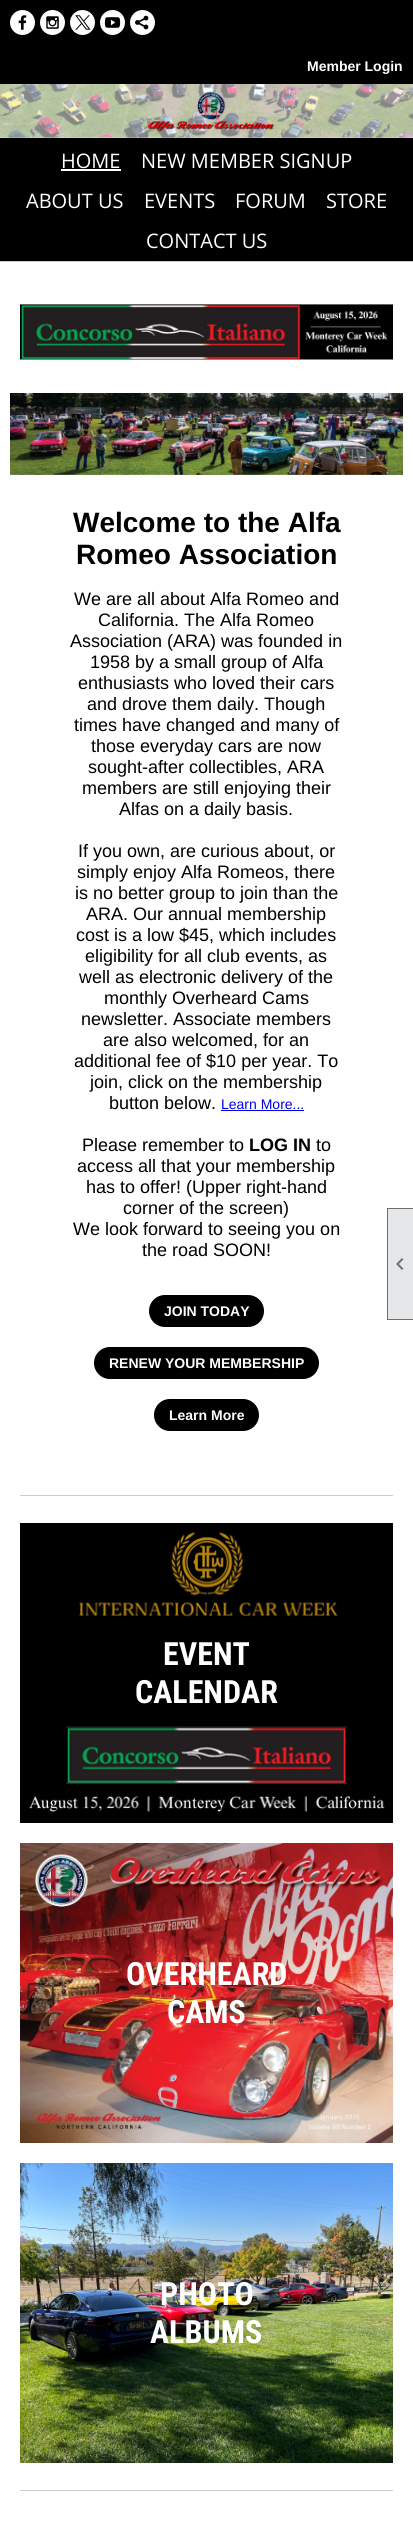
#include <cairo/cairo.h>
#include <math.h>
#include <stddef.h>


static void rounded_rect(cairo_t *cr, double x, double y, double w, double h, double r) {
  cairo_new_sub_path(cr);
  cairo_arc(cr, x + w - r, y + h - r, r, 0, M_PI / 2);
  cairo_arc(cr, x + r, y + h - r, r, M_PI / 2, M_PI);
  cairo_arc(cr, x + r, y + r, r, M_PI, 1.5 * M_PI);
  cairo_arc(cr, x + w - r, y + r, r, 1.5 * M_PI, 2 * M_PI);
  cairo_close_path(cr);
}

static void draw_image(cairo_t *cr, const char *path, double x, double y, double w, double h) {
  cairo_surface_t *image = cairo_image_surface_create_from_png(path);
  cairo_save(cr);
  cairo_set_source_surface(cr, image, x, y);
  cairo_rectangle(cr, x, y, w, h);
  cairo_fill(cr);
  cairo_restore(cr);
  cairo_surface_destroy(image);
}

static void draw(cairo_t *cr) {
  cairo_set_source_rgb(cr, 1, 1, 1);
  cairo_paint(cr);
  cairo_set_source_rgb(cr, 205 / 255.0, 205 / 255.0, 205 / 255.0);
  cairo_rectangle(cr, 0, 261, 413, 1);
  cairo_fill(cr);
  cairo_set_source_rgb(cr, 0, 0, 0);
  cairo_rectangle(cr, 0, 0, 413, 84);
  cairo_fill(cr);
  draw_image(cr, "images/1.png", 10, 10, 25, 25);
  draw_image(cr, "images/2.png", 40, 10, 25, 25);
  draw_image(cr, "images/3.png", 70, 10, 25, 25);
  draw_image(cr, "images/4.png", 100, 10, 25, 25);
  draw_image(cr, "images/5.png", 130, 10, 25, 25);
  cairo_rectangle(cr, 0, 138, 413, 123);
  cairo_fill(cr);
  draw_image(cr, "images/6.png", 0, 84, 413, 54);
  cairo_set_source_rgb(cr, 1, 1, 1);
  cairo_rectangle(cr, 61, 169, 60, 2);
  cairo_fill(cr);
  draw_image(cr, "images/7.png", 20, 304, 373, 56);
  draw_image(cr, "images/8.png", 10, 393, 393, 82);
  cairo_set_source_rgb(cr, 0, 0, 238 / 255.0);
  cairo_rectangle(cr, 221, 1110, 83, 1);
  cairo_fill(cr);
  cairo_set_source_rgb(cr, 0, 0, 0);
  rounded_rect(cr, 148, 1294, 117, 34, 17);
  cairo_fill_preserve(cr);
  cairo_set_source_rgb(cr, 1, 1, 1);
  cairo_stroke(cr);
  cairo_set_source_rgb(cr, 0, 0, 0);
  rounded_rect(cr, 93, 1346, 227, 34, 17);
  cairo_fill_preserve(cr);
  cairo_set_source_rgb(cr, 1, 1, 1);
  cairo_stroke(cr);
  cairo_set_source_rgb(cr, 0, 0, 0);
  rounded_rect(cr, 153, 1398, 107, 34, 17);
  cairo_fill_preserve(cr);
  cairo_set_source_rgb(cr, 1, 1, 1);
  cairo_stroke(cr);
  cairo_set_source_rgb(cr, 205 / 255.0, 205 / 255.0, 205 / 255.0);
  cairo_rectangle(cr, 20, 1495, 373, 1);
  cairo_fill(cr);
  draw_image(cr, "images/9.png", 20, 1523, 373, 300);
  draw_image(cr, "images/10.png", 20, 1843, 373, 300);
  draw_image(cr, "images/11.png", 20, 2163, 373, 300);
  cairo_rectangle(cr, 20, 2490, 373, 1);
  cairo_fill(cr);
  cairo_set_source_rgb(cr, 230 / 255.0, 231 / 255.0, 232 / 255.0);
  cairo_rectangle(cr, 387.5, 1208.5, 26, 111);
  cairo_fill_preserve(cr);
  cairo_set_source_rgb(cr, 109 / 255.0, 110 / 255.0, 113 / 255.0);
  cairo_set_line_width(cr, 1);
  cairo_stroke(cr);
  draw_image(cr, "images/12.png", 396, 1258, 8, 12);
  cairo_select_font_face(cr, "Liberation Sans", CAIRO_FONT_SLANT_NORMAL, CAIRO_FONT_WEIGHT_BOLD);
  cairo_set_font_size(cr, 14);
  cairo_set_source_rgb(cr, 1, 1, 1);
  cairo_move_to(cr, 307, 71);
  cairo_show_text(cr, "Member Login");
  cairo_select_font_face(cr, "Open Sans", CAIRO_FONT_SLANT_NORMAL, CAIRO_FONT_WEIGHT_NORMAL);
  cairo_set_font_size(cr, 20);
  cairo_move_to(cr, 61, 168);
  cairo_show_text(cr, "HOME");
  cairo_move_to(cr, 141, 168);
  cairo_show_text(cr, "NEW MEMBER SIGNUP");
  cairo_move_to(cr, 26, 208);
  cairo_show_text(cr, "ABOUT US");
  cairo_move_to(cr, 144, 208);
  cairo_show_text(cr, "EVENTS");
  cairo_move_to(cr, 235, 208);
  cairo_show_text(cr, "FORUM");
  cairo_move_to(cr, 326, 208);
  cairo_show_text(cr, "STORE");
  cairo_move_to(cr, 146, 248);
  cairo_show_text(cr, "CONTACT US");
  cairo_select_font_face(cr, "Liberation Sans", CAIRO_FONT_SLANT_NORMAL, CAIRO_FONT_WEIGHT_BOLD);
  cairo_set_font_size(cr, 28);
  cairo_set_source_rgb(cr, 0, 0, 0);
  cairo_move_to(cr, 73, 532);
  cairo_show_text(cr, "Welcome to the Alfa");
  cairo_move_to(cr, 76, 564);
  cairo_show_text(cr, "Romeo Association");
  cairo_select_font_face(cr, "Liberation Sans", CAIRO_FONT_SLANT_NORMAL, CAIRO_FONT_WEIGHT_NORMAL);
  cairo_set_font_size(cr, 18);
  cairo_move_to(cr, 74, 605);
  cairo_show_text(cr, "We are all about Alfa Romeo and");
  cairo_move_to(cr, 98, 626);
  cairo_show_text(cr, "California. The Alfa Romeo");
  cairo_move_to(cr, 70, 647);
  cairo_show_text(cr, "Association (ARA) was founded in");
  cairo_move_to(cr, 90, 668);
  cairo_show_text(cr, "1958 by a small group of Alfa");
  cairo_move_to(cr, 78, 689);
  cairo_show_text(cr, "enthusiasts who loved their cars");
  cairo_move_to(cr, 87, 710);
  cairo_show_text(cr, "and drove them daily. Though");
  cairo_move_to(cr, 74, 731);
  cairo_show_text(cr, "times have changed and many of");
  cairo_move_to(cr, 91, 752);
  cairo_show_text(cr, "those everyday cars are now");
  cairo_move_to(cr, 88, 773);
  cairo_show_text(cr, "sought-after collectibles, ARA");
  cairo_move_to(cr, 82, 794);
  cairo_show_text(cr, "members are still enjoying their");
  cairo_move_to(cr, 119, 815);
  cairo_show_text(cr, "Alfas on a daily basis.");
  cairo_move_to(cr, 78, 857);
  cairo_show_text(cr, "If you own, are curious about, or");
  cairo_move_to(cr, 77, 878);
  cairo_show_text(cr, "simply enjoy Alfa Romeos, there");
  cairo_move_to(cr, 75, 899);
  cairo_show_text(cr, "is no better group to join than the");
  cairo_move_to(cr, 86, 920);
  cairo_show_text(cr, "ARA. Our annual membership");
  cairo_move_to(cr, 76, 941);
  cairo_show_text(cr, "cost is a low $45, which includes");
  cairo_move_to(cr, 85, 962);
  cairo_show_text(cr, "eligibility for all club events, as");
  cairo_move_to(cr, 79, 983);
  cairo_show_text(cr, "well as electronic delivery of the");
  cairo_move_to(cr, 104, 1004);
  cairo_show_text(cr, "monthly Overheard Cams");
  cairo_move_to(cr, 81, 1025);
  cairo_show_text(cr, "newsletter. Associate members");
  cairo_move_to(cr, 103, 1046);
  cairo_show_text(cr, "are also welcomed, for an");
  cairo_move_to(cr, 74, 1067);
  cairo_show_text(cr, "additional fee of $10 per year. To");
  cairo_move_to(cr, 90, 1088);
  cairo_show_text(cr, "join, click on the membership");
  cairo_move_to(cr, 109, 1109);
  cairo_show_text(cr, "button below.");
  cairo_set_font_size(cr, 14);
  cairo_set_source_rgb(cr, 0, 0, 238 / 255.0);
  cairo_move_to(cr, 221, 1109);
  cairo_show_text(cr, "Learn More...");
  cairo_set_font_size(cr, 18);
  cairo_set_source_rgb(cr, 0, 0, 0);
  cairo_move_to(cr, 82, 1151);
  cairo_show_text(cr, "Please remember to");
  cairo_select_font_face(cr, "Liberation Sans", CAIRO_FONT_SLANT_NORMAL, CAIRO_FONT_WEIGHT_BOLD);
  cairo_move_to(cr, 249, 1151);
  cairo_show_text(cr, "LOG IN");
  cairo_select_font_face(cr, "Liberation Sans", CAIRO_FONT_SLANT_NORMAL, CAIRO_FONT_WEIGHT_NORMAL);
  cairo_move_to(cr, 316, 1151);
  cairo_show_text(cr, "to");
  cairo_move_to(cr, 77, 1172);
  cairo_show_text(cr, "access all that your membership");
  cairo_move_to(cr, 86, 1193);
  cairo_show_text(cr, "has to offer! (Upper right-hand");
  cairo_move_to(cr, 123, 1214);
  cairo_show_text(cr, "corner of the screen)");
  cairo_move_to(cr, 73, 1235);
  cairo_show_text(cr, "We look forward to seeing you on");
  cairo_move_to(cr, 142, 1256);
  cairo_show_text(cr, "the road SOON!");
  cairo_select_font_face(cr, "Liberation Sans", CAIRO_FONT_SLANT_NORMAL, CAIRO_FONT_WEIGHT_BOLD);
  cairo_set_font_size(cr, 14);
  cairo_set_source_rgb(cr, 1, 1, 1);
  cairo_move_to(cr, 164, 1316);
  cairo_show_text(cr, "JOIN TODAY");
  cairo_move_to(cr, 109, 1368);
  cairo_show_text(cr, "RENEW YOUR MEMBERSHIP");
  cairo_move_to(cr, 169, 1420);
  cairo_show_text(cr, "Learn More");
  cairo_select_font_face(cr, "Roboto Condensed", CAIRO_FONT_SLANT_NORMAL, CAIRO_FONT_WEIGHT_BOLD);
  cairo_set_font_size(cr, 32);
  cairo_move_to(cr, 163, 1665);
  cairo_show_text(cr, "EVENT");
  cairo_move_to(cr, 135, 1703);
  cairo_show_text(cr, "CALENDAR");
  cairo_move_to(cr, 126, 1985);
  cairo_show_text(cr, "OVERHEARD");
  cairo_move_to(cr, 167, 2023);
  cairo_show_text(cr, "CAMS");
  cairo_move_to(cr, 160, 2305);
  cairo_show_text(cr, "PHOTO");
  cairo_move_to(cr, 150, 2343);
  cairo_show_text(cr, "ALBUMS");
}

int main(void) {
  cairo_surface_t *surface = cairo_image_surface_create(CAIRO_FORMAT_RGB24, 413, 2535);
  cairo_t *cr = cairo_create(surface);
  cairo_font_options_t *options = cairo_font_options_create();
  cairo_font_options_set_hint_metrics(options, CAIRO_HINT_METRICS_OFF);
  cairo_font_options_set_hint_style(options, CAIRO_HINT_STYLE_NONE);
  cairo_set_font_options(cr, options);
  cairo_set_miter_limit(cr, 4);
  draw(cr);
  cairo_surface_write_to_png(surface, "out.png");
  cairo_font_options_destroy(options);
  cairo_destroy(cr);
  cairo_surface_destroy(surface);
  return 0;
}
